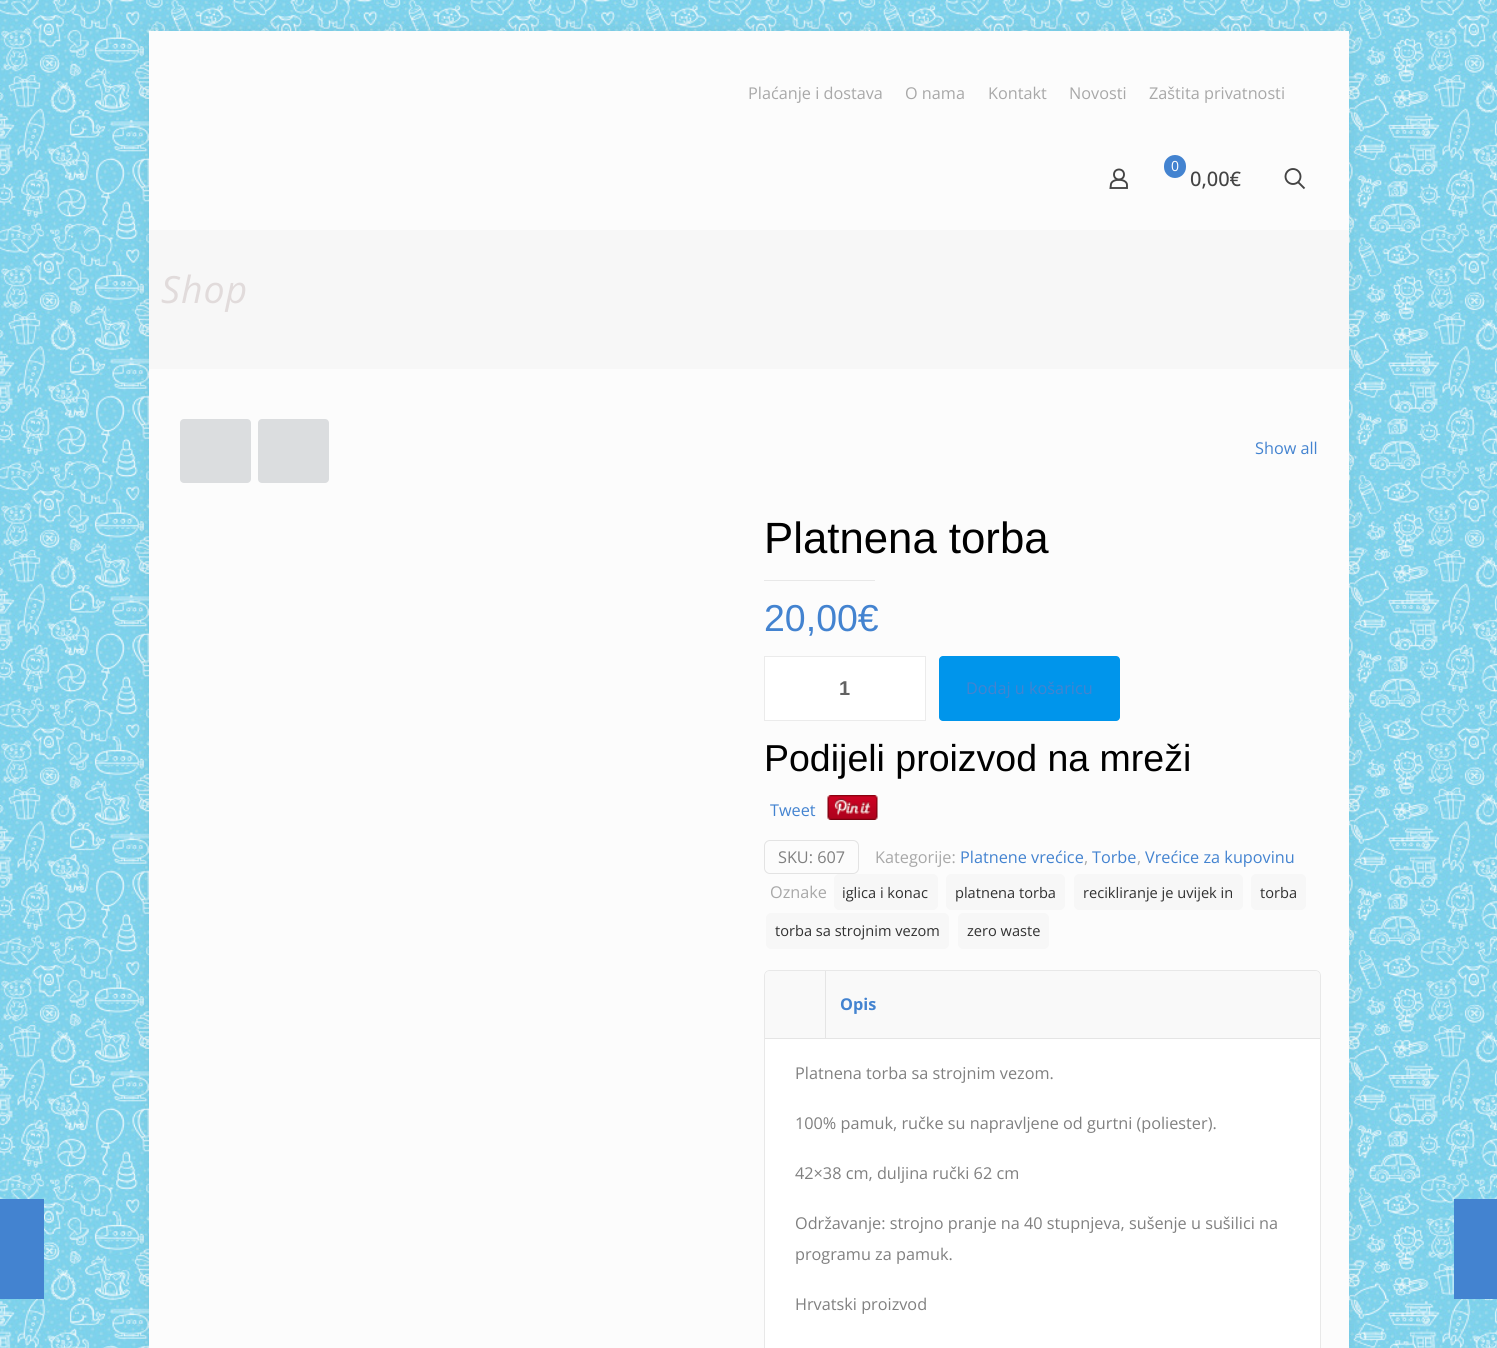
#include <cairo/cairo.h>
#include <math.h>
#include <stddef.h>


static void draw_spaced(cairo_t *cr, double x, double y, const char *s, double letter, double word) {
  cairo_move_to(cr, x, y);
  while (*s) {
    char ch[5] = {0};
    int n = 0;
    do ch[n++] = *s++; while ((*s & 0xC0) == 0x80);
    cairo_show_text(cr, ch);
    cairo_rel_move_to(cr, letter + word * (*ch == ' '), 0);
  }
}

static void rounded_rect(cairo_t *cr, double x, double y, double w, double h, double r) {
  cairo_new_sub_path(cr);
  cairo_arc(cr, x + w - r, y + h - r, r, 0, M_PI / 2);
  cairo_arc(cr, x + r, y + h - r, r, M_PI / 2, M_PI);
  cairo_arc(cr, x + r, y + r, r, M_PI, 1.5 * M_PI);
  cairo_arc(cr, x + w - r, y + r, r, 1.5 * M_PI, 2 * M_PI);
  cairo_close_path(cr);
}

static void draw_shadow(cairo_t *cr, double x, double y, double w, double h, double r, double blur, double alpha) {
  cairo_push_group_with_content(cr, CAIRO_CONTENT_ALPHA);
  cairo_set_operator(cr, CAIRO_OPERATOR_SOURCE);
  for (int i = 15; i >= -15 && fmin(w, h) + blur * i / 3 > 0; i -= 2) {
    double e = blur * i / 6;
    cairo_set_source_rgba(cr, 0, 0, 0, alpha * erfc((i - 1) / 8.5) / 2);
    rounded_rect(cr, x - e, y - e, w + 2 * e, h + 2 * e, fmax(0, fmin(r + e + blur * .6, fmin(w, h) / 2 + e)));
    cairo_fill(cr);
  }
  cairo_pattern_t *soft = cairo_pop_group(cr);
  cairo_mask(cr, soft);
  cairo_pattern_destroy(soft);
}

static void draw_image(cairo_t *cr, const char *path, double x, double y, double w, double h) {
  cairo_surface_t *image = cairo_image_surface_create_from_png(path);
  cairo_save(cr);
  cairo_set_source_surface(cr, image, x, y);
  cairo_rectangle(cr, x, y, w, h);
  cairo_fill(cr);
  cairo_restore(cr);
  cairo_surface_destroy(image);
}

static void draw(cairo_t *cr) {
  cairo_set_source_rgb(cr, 1, 1, 1);
  cairo_paint(cr);
  draw_image(cr, "images/1.png", 0, 0, 1497, 1348);
  cairo_set_source_rgb(cr, 67 / 255.0, 131 / 255.0, 208 / 255.0);
  cairo_rectangle(cr, 0, 1199, 44, 100);
  cairo_fill(cr);
  cairo_set_source_rgb(cr, 0, 0, 0);
  draw_shadow(cr, 149, 31, 1200, 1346, 0, 9.5, 0.06);
  cairo_set_source_rgb(cr, 252 / 255.0, 252 / 255.0, 252 / 255.0);
  cairo_rectangle(cr, 149, 369, 1200, 979);
  cairo_fill(cr);
  cairo_rectangle(cr, 149, 31, 1200, 199);
  cairo_fill(cr);
  cairo_arc(cr, 1119, 174.5, 5, 0, 2 * M_PI);
  cairo_set_source_rgb(cr, 68 / 255.0, 68 / 255.0, 68 / 255.0);
  cairo_set_line_width(cr, 1.9);
  cairo_stroke(cr);
  cairo_new_path(cr);
  cairo_move_to(cr, 1127, 185);
  cairo_line_to(cr, 1127, 188);
  cairo_line_to(cr, 1110.5, 188);
  cairo_line_to(cr, 1111, 184);
  cairo_curve_to(cr, 1112.5, 178, 1127, 178.5, 1127, 185);
  cairo_close_path(cr);
  cairo_stroke(cr);
  cairo_set_source_rgb(cr, 67 / 255.0, 131 / 255.0, 208 / 255.0);
  rounded_rect(cr, 1164, 155, 22, 23, 11);
  cairo_fill(cr);
  cairo_arc(cr, 1293, 176.5, 7.5, 0, 2 * M_PI);
  cairo_set_source_rgb(cr, 68 / 255.0, 68 / 255.0, 68 / 255.0);
  cairo_stroke(cr);
  cairo_new_path(cr);
  cairo_move_to(cr, 1298, 182);
  cairo_line_to(cr, 1304.5, 188.5);
  cairo_stroke(cr);
  cairo_set_source_rgb(cr, 247 / 255.0, 247 / 255.0, 247 / 255.0);
  cairo_rectangle(cr, 149, 230, 1200, 139);
  cairo_fill(cr);
  cairo_set_source_rgb(cr, 219 / 255.0, 221 / 255.0, 223 / 255.0);
  rounded_rect(cr, 180, 419, 71, 64, 4);
  cairo_fill(cr);
  rounded_rect(cr, 258, 419, 71, 64, 4);
  cairo_fill(cr);
  cairo_set_source_rgb(cr, 232 / 255.0, 232 / 255.0, 232 / 255.0);
  cairo_rectangle(cr, 764, 580, 111, 1);
  cairo_fill(cr);
  cairo_set_source_rgb(cr, 1, 1, 1);
  cairo_rectangle(cr, 764.5, 656.5, 161, 64);
  cairo_fill_preserve(cr);
  cairo_set_source_rgb(cr, 235 / 255.0, 235 / 255.0, 235 / 255.0);
  cairo_set_line_width(cr, 1);
  cairo_stroke(cr);
  cairo_set_source_rgb(cr, 0, 149 / 255.0, 235 / 255.0);
  rounded_rect(cr, 939, 656, 181, 65, 4);
  cairo_fill(cr);
  draw_image(cr, "images/2.png", 827, 795, 51, 25);
  rounded_rect(cr, 764.5, 840.5, 94, 33, 5.5);
  cairo_set_source_rgb(cr, 227 / 255.0, 227 / 255.0, 227 / 255.0);
  cairo_stroke(cr);
  cairo_set_source_rgb(cr, 247 / 255.0, 247 / 255.0, 247 / 255.0);
  rounded_rect(cr, 834, 874, 104, 36, 5);
  cairo_fill(cr);
  rounded_rect(cr, 946, 874, 119, 36, 5);
  cairo_fill(cr);
  rounded_rect(cr, 1074, 874, 169, 36, 5);
  cairo_fill(cr);
  rounded_rect(cr, 1251, 874, 55, 36, 5);
  cairo_fill(cr);
  rounded_rect(cr, 766, 913, 183, 36, 5);
  cairo_fill(cr);
  rounded_rect(cr, 958, 913, 91, 36, 5);
  cairo_fill(cr);
  rounded_rect(cr, 764.5, 970.5, 556, 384, 5.5);
  cairo_set_source_rgb(cr, 232 / 255.0, 232 / 255.0, 232 / 255.0);
  cairo_stroke(cr);
  cairo_set_source_rgb(cr, 249 / 255.0, 249 / 255.0, 249 / 255.0);
  cairo_new_path(cr);
  cairo_move_to(cr, 770, 971);
  cairo_line_to(cr, 1315, 971);
  cairo_curve_to(cr, 1318, 971, 1320, 973, 1320, 976);
  cairo_line_to(cr, 1320, 1039);
  cairo_line_to(cr, 765, 1039);
  cairo_line_to(cr, 765, 976);
  cairo_curve_to(cr, 765, 973, 767, 971, 770, 971);
  cairo_close_path(cr);
  cairo_fill(cr);
  cairo_set_source_rgb(cr, 229 / 255.0, 229 / 255.0, 229 / 255.0);
  cairo_rectangle(cr, 765, 1038, 555, 1);
  cairo_fill(cr);
  cairo_rectangle(cr, 825, 971, 1, 67);
  cairo_fill(cr);
  cairo_set_source_rgb(cr, 1, 1, 1);
  cairo_rectangle(cr, 765, 1039, 555, 309);
  cairo_fill(cr);
  cairo_set_source_rgb(cr, 67 / 255.0, 131 / 255.0, 208 / 255.0);
  cairo_rectangle(cr, 1454, 1199, 43, 100);
  cairo_fill(cr);
  cairo_select_font_face(cr, "Open Sans", CAIRO_FONT_SLANT_NORMAL, CAIRO_FONT_WEIGHT_NORMAL);
  cairo_set_font_size(cr, 16.25);
  cairo_set_source_rgb(cr, 168 / 255.0, 168 / 255.0, 168 / 255.0);
  cairo_move_to(cr, 748, 99);
  cairo_show_text(cr, "Plaćanje i dostava");
  cairo_move_to(cr, 905, 99);
  cairo_show_text(cr, "O nama");
  cairo_move_to(cr, 988, 99);
  cairo_show_text(cr, "Kontakt");
  cairo_move_to(cr, 1069, 99);
  cairo_show_text(cr, "Novosti");
  cairo_move_to(cr, 1149, 99);
  cairo_show_text(cr, "Zaštita privatnosti");
  cairo_set_font_size(cr, 14);
  cairo_set_source_rgb(cr, 1, 1, 1);
  cairo_move_to(cr, 1171, 171);
  cairo_show_text(cr, "0");
  cairo_select_font_face(cr, "Open Sans Medium", CAIRO_FONT_SLANT_NORMAL, CAIRO_FONT_WEIGHT_NORMAL);
  cairo_set_font_size(cr, 20);
  cairo_set_source_rgb(cr, 68 / 255.0, 68 / 255.0, 68 / 255.0);
  cairo_move_to(cr, 1190, 186);
  cairo_show_text(cr, "0,00€");
  cairo_select_font_face(cr, "Open Sans", CAIRO_FONT_SLANT_ITALIC, CAIRO_FONT_WEIGHT_NORMAL);
  cairo_set_font_size(cr, 37.5);
  cairo_set_source_rgb(cr, 225 / 255.0, 219 / 255.0, 219 / 255.0);
  draw_spaced(cr, 161, 303, "Shop", 1, 0);
  cairo_select_font_face(cr, "Open Sans", CAIRO_FONT_SLANT_NORMAL, CAIRO_FONT_WEIGHT_NORMAL);
  cairo_set_font_size(cr, 16.25);
  cairo_set_source_rgb(cr, 67 / 255.0, 131 / 255.0, 208 / 255.0);
  cairo_move_to(cr, 1255, 454);
  cairo_show_text(cr, "Show all");
  cairo_select_font_face(cr, "Liberation Sans", CAIRO_FONT_SLANT_NORMAL, CAIRO_FONT_WEIGHT_NORMAL);
  cairo_set_font_size(cr, 43.75);
  cairo_set_source_rgb(cr, 0, 0, 0);
  cairo_move_to(cr, 764, 553);
  cairo_show_text(cr, "Platnena torba");
  cairo_set_font_size(cr, 37.5);
  cairo_set_source_rgb(cr, 67 / 255.0, 131 / 255.0, 208 / 255.0);
  cairo_move_to(cr, 764, 631);
  cairo_show_text(cr, "20,00€");
  cairo_select_font_face(cr, "Liberation Sans", CAIRO_FONT_SLANT_NORMAL, CAIRO_FONT_WEIGHT_BOLD);
  cairo_set_font_size(cr, 20);
  cairo_set_source_rgb(cr, 98 / 255.0, 98 / 255.0, 98 / 255.0);
  cairo_move_to(cr, 839, 695);
  cairo_show_text(cr, "1");
  cairo_select_font_face(cr, "Open Sans", CAIRO_FONT_SLANT_NORMAL, CAIRO_FONT_WEIGHT_NORMAL);
  cairo_set_font_size(cr, 16.25);
  cairo_set_source_rgb(cr, 67 / 255.0, 131 / 255.0, 208 / 255.0);
  cairo_move_to(cr, 966, 694);
  cairo_show_text(cr, "Dodaj u košaricu");
  cairo_select_font_face(cr, "Liberation Sans", CAIRO_FONT_SLANT_NORMAL, CAIRO_FONT_WEIGHT_NORMAL);
  cairo_set_font_size(cr, 37.5);
  cairo_set_source_rgb(cr, 0, 0, 0);
  cairo_move_to(cr, 764, 771);
  cairo_show_text(cr, "Podijeli proizvod na mreži");
  cairo_select_font_face(cr, "Open Sans", CAIRO_FONT_SLANT_NORMAL, CAIRO_FONT_WEIGHT_NORMAL);
  cairo_set_font_size(cr, 16.25);
  cairo_set_source_rgb(cr, 67 / 255.0, 131 / 255.0, 208 / 255.0);
  cairo_move_to(cr, 770, 816);
  cairo_show_text(cr, "Tweet");
  cairo_set_source_rgb(cr, 128 / 255.0, 128 / 255.0, 128 / 255.0);
  cairo_move_to(cr, 778, 863);
  cairo_show_text(cr, "SKU: 607");
  cairo_set_source_rgb(cr, 168 / 255.0, 168 / 255.0, 168 / 255.0);
  cairo_move_to(cr, 875, 863);
  cairo_show_text(cr, "Kategorije:");
  cairo_set_source_rgb(cr, 67 / 255.0, 131 / 255.0, 208 / 255.0);
  cairo_move_to(cr, 960, 863);
  cairo_show_text(cr, "Platnene vrećice");
  cairo_set_source_rgb(cr, 168 / 255.0, 168 / 255.0, 168 / 255.0);
  cairo_move_to(cr, 1084, 863);
  cairo_show_text(cr, ",");
  cairo_set_source_rgb(cr, 67 / 255.0, 131 / 255.0, 208 / 255.0);
  cairo_move_to(cr, 1092, 863);
  cairo_show_text(cr, "Torbe");
  cairo_set_source_rgb(cr, 168 / 255.0, 168 / 255.0, 168 / 255.0);
  cairo_move_to(cr, 1137, 863);
  cairo_show_text(cr, ",");
  cairo_set_source_rgb(cr, 67 / 255.0, 131 / 255.0, 208 / 255.0);
  cairo_move_to(cr, 1145, 863);
  cairo_show_text(cr, "Vrećice za kupovinu");
  cairo_set_source_rgb(cr, 168 / 255.0, 168 / 255.0, 168 / 255.0);
  cairo_move_to(cr, 770, 898);
  cairo_show_text(cr, "Oznake");
  cairo_set_font_size(cr, 14.6);
  cairo_set_source_rgb(cr, 49 / 255.0, 49 / 255.0, 49 / 255.0);
  cairo_move_to(cr, 842, 898);
  cairo_show_text(cr, "iglica i konac");
  cairo_move_to(cr, 955, 898);
  cairo_show_text(cr, "platnena torba");
  cairo_move_to(cr, 1083, 898);
  cairo_show_text(cr, "recikliranje je uvijek in");
  cairo_move_to(cr, 1260, 898);
  cairo_show_text(cr, "torba");
  cairo_move_to(cr, 775, 936);
  cairo_show_text(cr, "torba sa strojnim vezom");
  cairo_move_to(cr, 967, 936);
  cairo_show_text(cr, "zero waste");
  cairo_select_font_face(cr, "Open Sans", CAIRO_FONT_SLANT_NORMAL, CAIRO_FONT_WEIGHT_BOLD);
  cairo_set_font_size(cr, 16.25);
  cairo_set_source_rgb(cr, 67 / 255.0, 131 / 255.0, 208 / 255.0);
  cairo_move_to(cr, 840, 1010);
  cairo_show_text(cr, "Opis");
  cairo_select_font_face(cr, "Open Sans", CAIRO_FONT_SLANT_NORMAL, CAIRO_FONT_WEIGHT_NORMAL);
  cairo_set_source_rgb(cr, 128 / 255.0, 128 / 255.0, 128 / 255.0);
  cairo_move_to(cr, 795, 1079);
  cairo_show_text(cr, "Platnena torba sa strojnim vezom.");
  cairo_move_to(cr, 795, 1129);
  cairo_show_text(cr, "100% pamuk, ručke su napravljene od gurtni (poliester).");
  cairo_move_to(cr, 795, 1179);
  cairo_show_text(cr, "42×38 cm, duljina ručki 62 cm");
  cairo_move_to(cr, 795, 1229);
  cairo_show_text(cr, "Održavanje: strojno pranje na 40 stupnjeva, sušenje u sušilici na");
  cairo_move_to(cr, 795, 1260);
  cairo_show_text(cr, "programu za pamuk.");
  cairo_move_to(cr, 795, 1310);
  cairo_show_text(cr, "Hrvatski proizvod");
}

int main(void) {
  cairo_surface_t *surface = cairo_image_surface_create(CAIRO_FORMAT_RGB24, 1497, 1348);
  cairo_t *cr = cairo_create(surface);
  cairo_font_options_t *options = cairo_font_options_create();
  cairo_font_options_set_hint_metrics(options, CAIRO_HINT_METRICS_OFF);
  cairo_font_options_set_hint_style(options, CAIRO_HINT_STYLE_NONE);
  cairo_set_font_options(cr, options);
  cairo_set_miter_limit(cr, 4);
  draw(cr);
  cairo_surface_write_to_png(surface, "out.png");
  cairo_font_options_destroy(options);
  cairo_destroy(cr);
  cairo_surface_destroy(surface);
  return 0;
}
